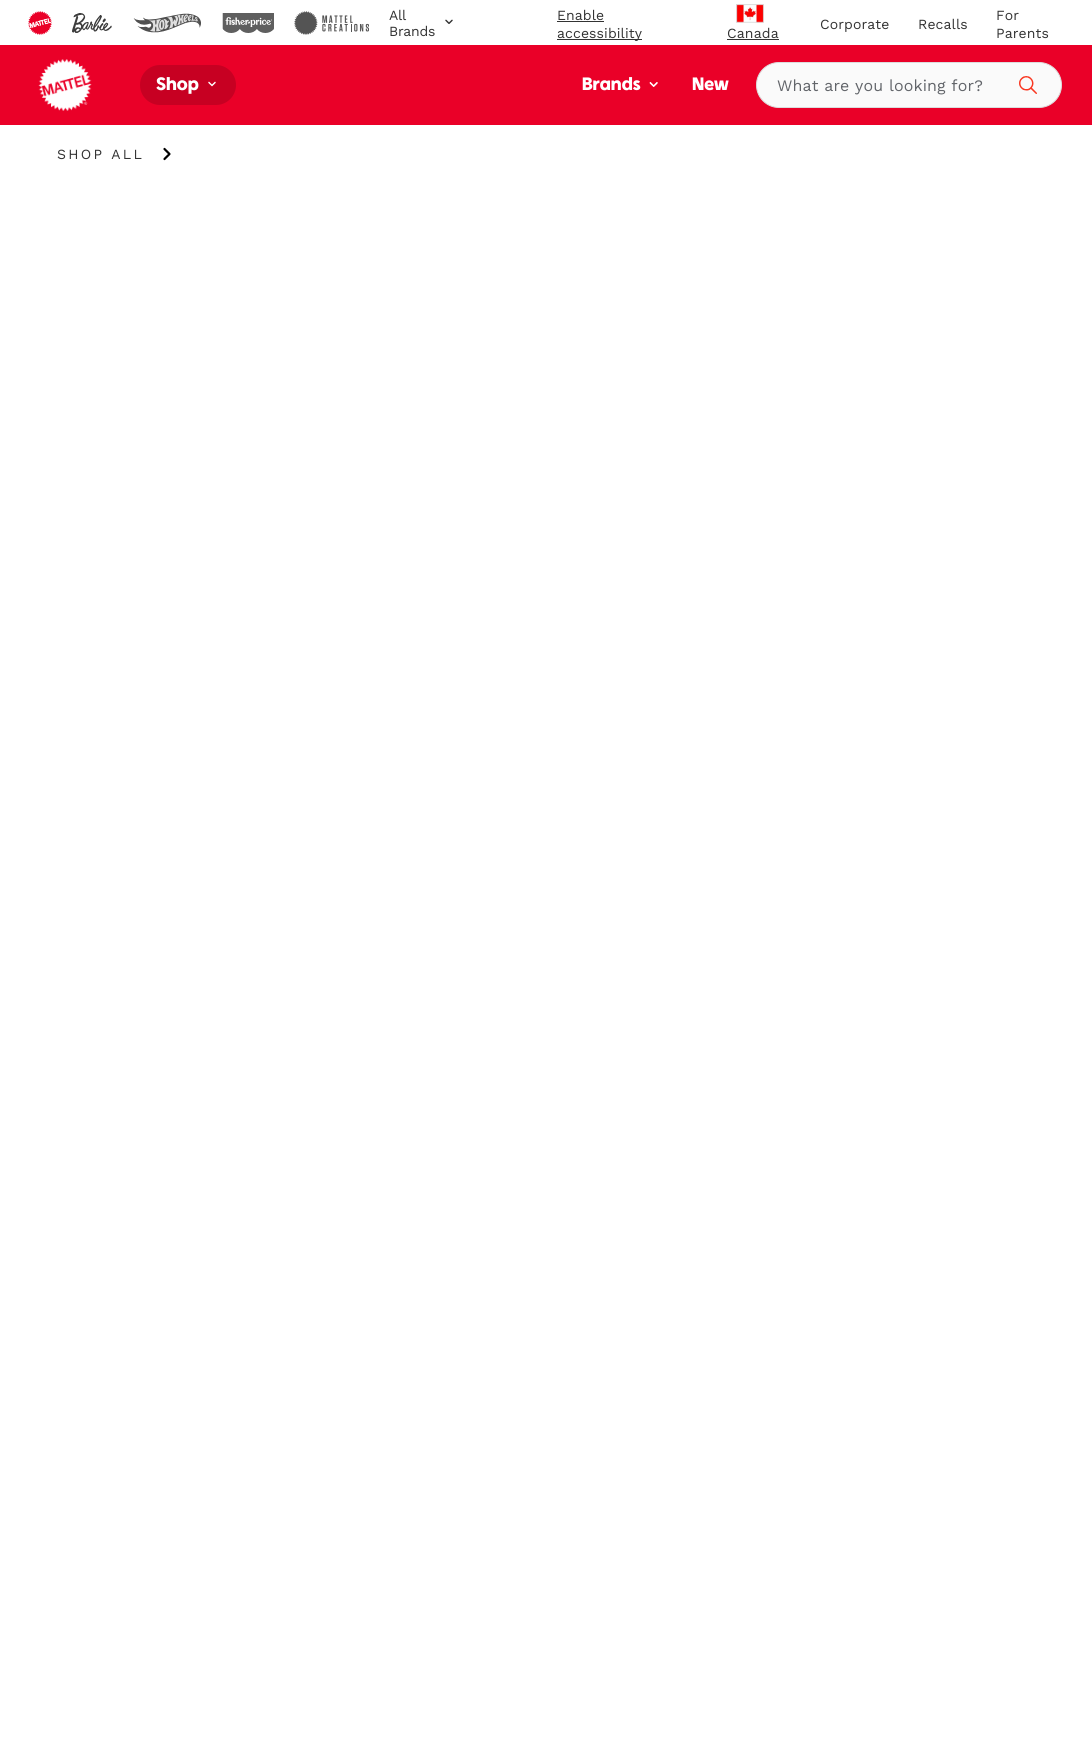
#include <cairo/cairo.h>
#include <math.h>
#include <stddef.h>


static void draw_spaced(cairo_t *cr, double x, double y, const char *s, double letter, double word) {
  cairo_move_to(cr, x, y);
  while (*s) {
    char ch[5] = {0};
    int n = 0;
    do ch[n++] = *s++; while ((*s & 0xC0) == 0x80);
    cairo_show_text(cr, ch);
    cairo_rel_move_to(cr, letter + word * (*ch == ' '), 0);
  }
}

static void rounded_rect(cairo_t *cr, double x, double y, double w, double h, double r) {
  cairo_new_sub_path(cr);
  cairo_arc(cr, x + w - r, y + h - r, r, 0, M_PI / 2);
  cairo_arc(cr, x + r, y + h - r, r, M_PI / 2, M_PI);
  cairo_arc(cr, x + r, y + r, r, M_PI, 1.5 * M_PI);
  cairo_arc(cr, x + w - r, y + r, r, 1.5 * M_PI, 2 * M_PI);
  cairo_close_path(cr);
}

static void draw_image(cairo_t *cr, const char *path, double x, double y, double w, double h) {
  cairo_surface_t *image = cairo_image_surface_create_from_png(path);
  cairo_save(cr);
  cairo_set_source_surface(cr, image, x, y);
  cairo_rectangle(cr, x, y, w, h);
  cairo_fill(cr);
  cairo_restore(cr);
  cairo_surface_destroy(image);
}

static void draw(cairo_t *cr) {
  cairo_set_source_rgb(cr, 1, 1, 1);
  cairo_paint(cr);
  draw_image(cr, "images/1.png", 28, 11, 24, 24);
  draw_image(cr, "images/2.png", 72, 13, 40, 20);
  draw_image(cr, "images/3.png", 133, 13, 68, 20);
  draw_image(cr, "images/4.png", 222, 13, 52, 20);
  draw_image(cr, "images/5.png", 294, 11, 75, 24);
  draw_image(cr, "images/6.png", 445, 19, 8, 5);
  cairo_set_source_rgb(cr, 51 / 255.0, 51 / 255.0, 51 / 255.0);
  cairo_rectangle(cr, 557, 21, 47, 1);
  cairo_fill(cr);
  cairo_rectangle(cr, 557, 39, 85, 1);
  cairo_fill(cr);
  draw_image(cr, "images/7.png", 736, 4, 28, 19);
  cairo_rectangle(cr, 727, 39, 52, 1);
  cairo_fill(cr);
  cairo_set_source_rgb(cr, 234 / 255.0, 0, 40 / 255.0);
  cairo_rectangle(cr, 0, 45, 1092, 80);
  cairo_fill(cr);
  draw_image(cr, "images/8.png", 38, 59, 54, 52);
  cairo_set_source_rgb(cr, 199 / 255.0, 0, 34 / 255.0);
  rounded_rect(cr, 140, 65, 96, 40, 20);
  cairo_fill(cr);
  draw_image(cr, "images/9.png", 208, 81, 8, 6);
  draw_image(cr, "images/10.png", 649, 82, 9, 5);
  cairo_set_source_rgb(cr, 250 / 255.0, 250 / 255.0, 250 / 255.0);
  rounded_rect(cr, 756.5, 62.5, 305, 45, 22.5);
  cairo_fill_preserve(cr);
  cairo_set_source_rgb(cr, 220 / 255.0, 220 / 255.0, 220 / 255.0);
  cairo_set_line_width(cr, 1);
  cairo_stroke(cr);
  draw_image(cr, "images/11.png", 1019, 76, 18, 18);
  draw_image(cr, "images/12.png", 163, 147, 8, 14);
  cairo_select_font_face(cr, "Work Sans", CAIRO_FONT_SLANT_NORMAL, CAIRO_FONT_WEIGHT_NORMAL);
  cairo_set_font_size(cr, 14);
  cairo_set_source_rgb(cr, 51 / 255.0, 51 / 255.0, 51 / 255.0);
  draw_spaced(cr, 389, 20, "All", -0.25, 0);
  draw_spaced(cr, 389, 36, "Brands", -0.25, 0);
  draw_spaced(cr, 557, 20, "Enable", 0.1, 0);
  draw_spaced(cr, 557, 38, "accessibility", 0.1, 0);
  draw_spaced(cr, 727, 38, "Canada", 0.15, 0);
  draw_spaced(cr, 820, 29, "Corporate", 0.1, 0);
  draw_spaced(cr, 918, 29, "Recalls", 0.1, 0);
  draw_spaced(cr, 996, 20, "For", 0.1, 0);
  draw_spaced(cr, 996, 38, "Parents", 0.1, 0);
  cairo_select_font_face(cr, "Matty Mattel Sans", CAIRO_FONT_SLANT_NORMAL, CAIRO_FONT_WEIGHT_BOLD);
  cairo_set_font_size(cr, 19);
  cairo_set_source_rgb(cr, 1, 1, 1);
  cairo_move_to(cr, 156, 90);
  cairo_show_text(cr, "Shop");
  cairo_move_to(cr, 582, 90);
  cairo_show_text(cr, "Brands");
  cairo_move_to(cr, 692, 90);
  cairo_show_text(cr, "New");
  cairo_select_font_face(cr, "Work Sans", CAIRO_FONT_SLANT_NORMAL, CAIRO_FONT_WEIGHT_NORMAL);
  cairo_set_font_size(cr, 16);
  cairo_set_source_rgb(cr, 98 / 255.0, 101 / 255.0, 106 / 255.0);
  draw_spaced(cr, 777, 91, "What are you looking for?", 0.15, 0);
  cairo_set_font_size(cr, 14);
  cairo_set_source_rgb(cr, 51 / 255.0, 51 / 255.0, 51 / 255.0);
  draw_spaced(cr, 57, 159, "SHOP ALL", 2.25, 0);
}

int main(void) {
  cairo_surface_t *surface = cairo_image_surface_create(CAIRO_FORMAT_RGB24, 1092, 1757);
  cairo_t *cr = cairo_create(surface);
  cairo_font_options_t *options = cairo_font_options_create();
  cairo_font_options_set_hint_metrics(options, CAIRO_HINT_METRICS_OFF);
  cairo_font_options_set_hint_style(options, CAIRO_HINT_STYLE_NONE);
  cairo_set_font_options(cr, options);
  cairo_set_miter_limit(cr, 4);
  draw(cr);
  cairo_surface_write_to_png(surface, "out.png");
  cairo_font_options_destroy(options);
  cairo_destroy(cr);
  cairo_surface_destroy(surface);
  return 0;
}
